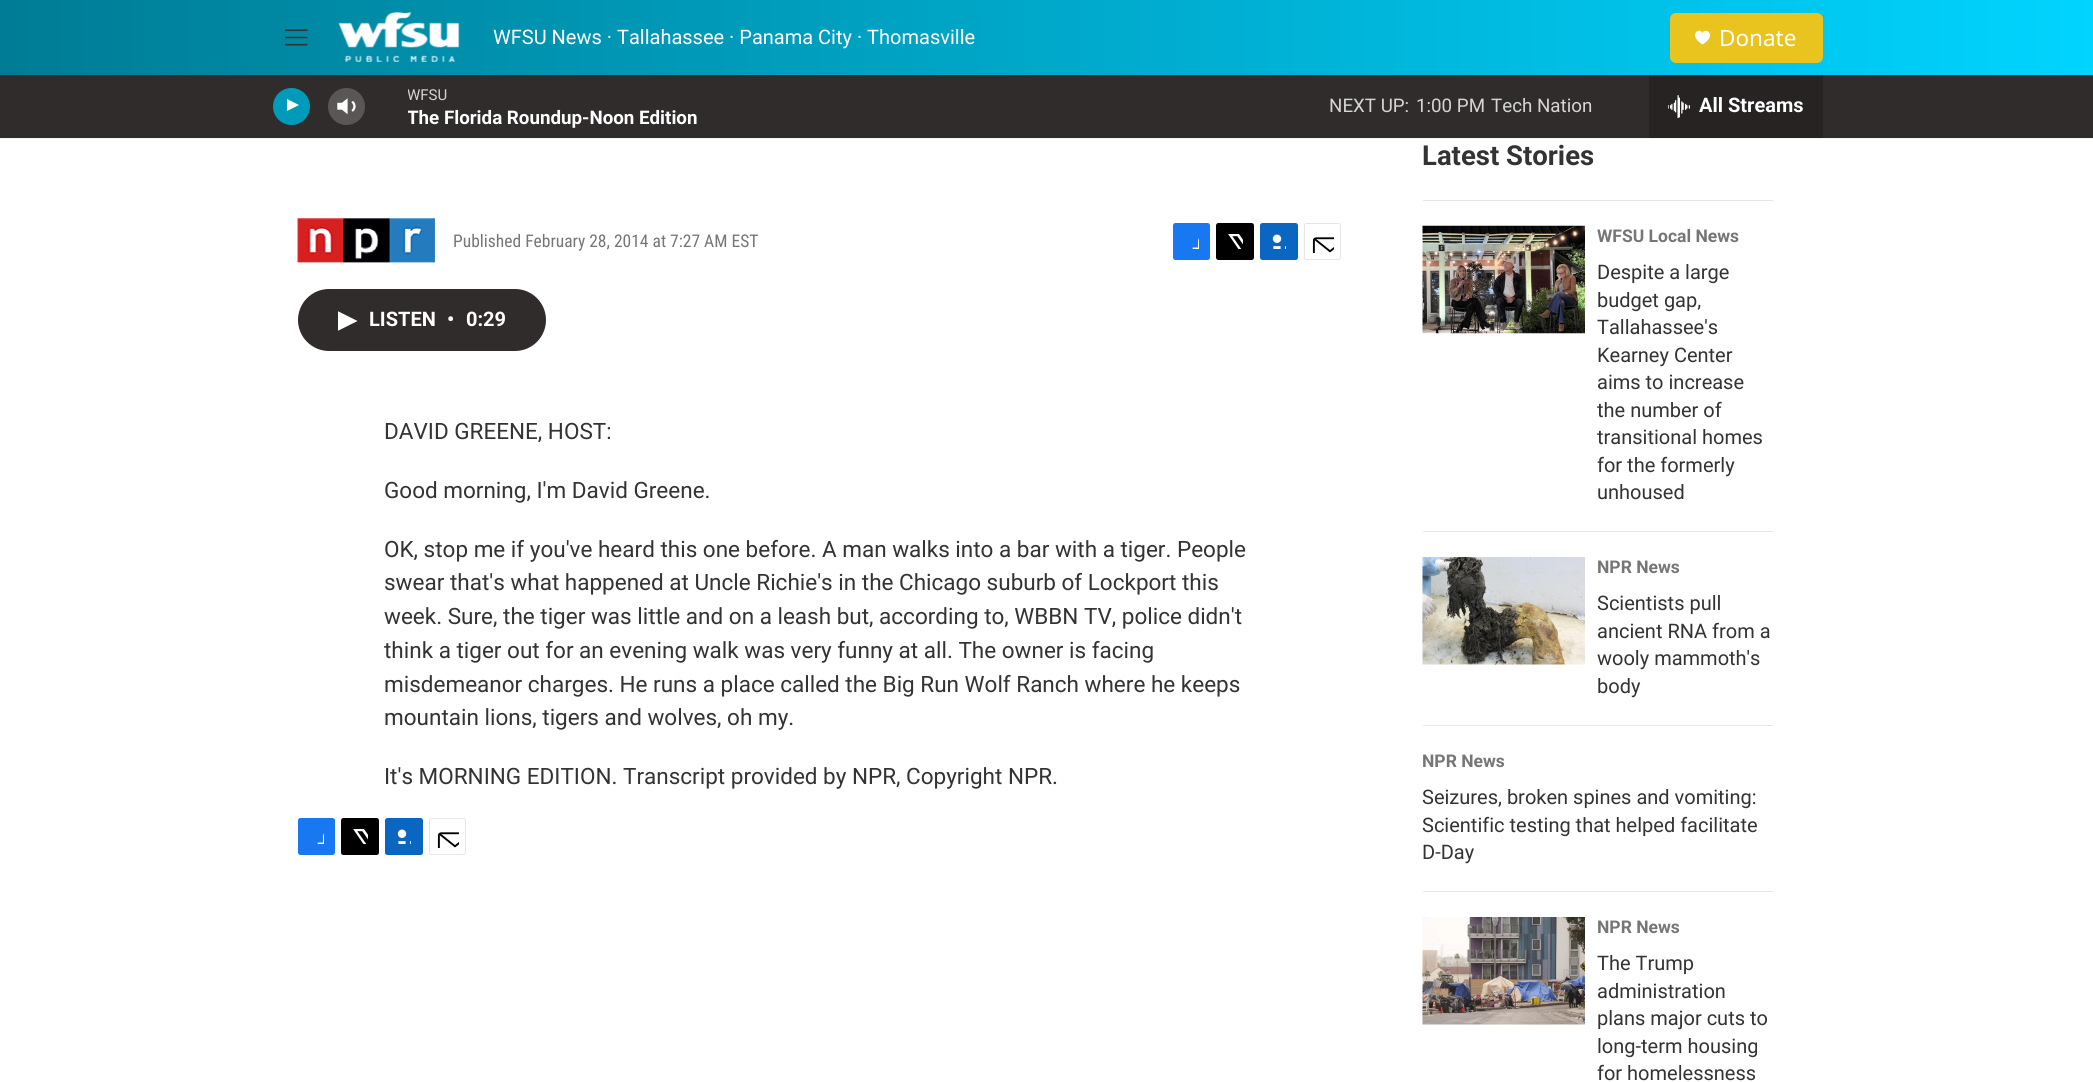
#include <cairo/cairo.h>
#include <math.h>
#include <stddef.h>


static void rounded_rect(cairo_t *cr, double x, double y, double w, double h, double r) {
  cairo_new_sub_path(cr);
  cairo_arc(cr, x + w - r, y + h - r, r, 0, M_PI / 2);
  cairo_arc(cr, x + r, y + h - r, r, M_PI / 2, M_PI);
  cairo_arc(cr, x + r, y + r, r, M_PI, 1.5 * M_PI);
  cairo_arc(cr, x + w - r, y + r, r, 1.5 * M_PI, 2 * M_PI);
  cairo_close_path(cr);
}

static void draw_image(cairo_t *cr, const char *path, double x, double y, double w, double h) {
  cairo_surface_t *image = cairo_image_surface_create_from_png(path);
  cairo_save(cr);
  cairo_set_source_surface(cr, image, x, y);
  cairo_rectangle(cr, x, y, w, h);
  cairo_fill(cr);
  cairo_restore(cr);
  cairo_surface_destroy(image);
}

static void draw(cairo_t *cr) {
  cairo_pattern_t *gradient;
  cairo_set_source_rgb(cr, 1, 1, 1);
  cairo_paint(cr);
  gradient = cairo_pattern_create_linear(0, 69, 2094, 69);
  cairo_pattern_add_color_stop_rgba(gradient, 0, 0, 124 / 255.0, 149 / 255.0, 1);
  cairo_pattern_add_color_stop_rgba(gradient, 0.35, 0, 155 / 255.0, 186 / 255.0, 1);
  cairo_pattern_add_color_stop_rgba(gradient, 1, 0, 212 / 255.0, 1, 1);
  cairo_set_source(cr, gradient);
  cairo_pattern_destroy(gradient);
  cairo_rectangle(cr, 0, 0, 2093, 75);
  cairo_fill(cr);
  cairo_set_source_rgb(cr, 245 / 255.0, 245 / 255.0, 245 / 255.0);
  cairo_rectangle(cr, 0, 138, 2093, 1);
  cairo_fill(cr);
  draw_image(cr, "images/1.png", 285, 29, 23, 17);
  draw_image(cr, "images/2.png", 338, 12, 122, 50);
  cairo_set_source_rgb(cr, 233 / 255.0, 195 / 255.0, 30 / 255.0);
  rounded_rect(cr, 1670, 13, 153, 50, 6);
  cairo_fill(cr);
  cairo_set_source_rgb(cr, 1, 1, 1);
  cairo_new_path(cr);
  cairo_move_to(cr, 1702.5, 33);
  cairo_curve_to(cr, 1700, 26.5, 1687, 35, 1702.5, 44.5);
  cairo_curve_to(cr, 1718, 35, 1705, 26.5, 1702.5, 33);
  cairo_close_path(cr);
  cairo_fill(cr);
  cairo_set_source_rgb(cr, 49 / 255.0, 44 / 255.0, 44 / 255.0);
  cairo_rectangle(cr, 0, 75, 2093, 63);
  cairo_fill(cr);
  cairo_set_source_rgb(cr, 0, 155 / 255.0, 186 / 255.0);
  cairo_arc(cr, 291.5, 106.5, 18.5, 0, 2 * M_PI);
  cairo_fill(cr);
  cairo_set_source_rgb(cr, 1, 1, 1);
  cairo_new_path(cr);
  cairo_move_to(cr, 287, 99);
  cairo_line_to(cr, 299, 105);
  cairo_line_to(cr, 287, 111);
  cairo_close_path(cr);
  cairo_fill(cr);
  draw_image(cr, "images/3.png", 337, 98, 19, 17);
  cairo_set_source_rgba(cr, 1, 1, 1, 0.2);
  cairo_arc(cr, 346.5, 106.5, 18.5, 0, 2 * M_PI);
  cairo_fill(cr);
  cairo_set_source_rgb(cr, 39 / 255.0, 35 / 255.0, 35 / 255.0);
  cairo_rectangle(cr, 1649, 75, 174, 63);
  cairo_fill(cr);
  draw_image(cr, "images/4.png", 1668, 95, 22, 23);
  draw_image(cr, "images/5.png", 297, 218, 138, 45);
  cairo_set_source_rgb(cr, 23 / 255.0, 120 / 255.0, 242 / 255.0);
  rounded_rect(cr, 1173, 223, 37, 37, 2.5);
  cairo_fill(cr);
  draw_image(cr, "images/6.png", 1192, 238, 7, 11);
  cairo_set_source_rgb(cr, 0, 0, 0);
  rounded_rect(cr, 1216, 223, 38, 37, 2.5);
  cairo_fill(cr);
  draw_image(cr, "images/7.png", 1228, 234, 15, 15);
  cairo_set_source_rgb(cr, 10 / 255.0, 102 / 255.0, 193 / 255.0);
  rounded_rect(cr, 1260, 223, 38, 37, 2.5);
  cairo_fill(cr);
  draw_image(cr, "images/8.png", 1272, 234, 14, 15);
  rounded_rect(cr, 1304.5, 223.5, 36, 36, 2);
  cairo_set_source_rgb(cr, 230 / 255.0, 230 / 255.0, 230 / 255.0);
  cairo_set_line_width(cr, 1);
  cairo_stroke(cr);
  draw_image(cr, "images/9.png", 1312, 237, 22, 16);
  cairo_set_source_rgb(cr, 49 / 255.0, 44 / 255.0, 44 / 255.0);
  rounded_rect(cr, 298, 289, 248, 62, 31);
  cairo_fill(cr);
  cairo_save(cr);
  cairo_rectangle(cr, 338, 311, 20, 20);
  cairo_clip(cr);
  cairo_set_source_rgb(cr, 1, 1, 1);
  cairo_new_path(cr);
  cairo_move_to(cr, 337.5, 311);
  cairo_line_to(cr, 357.5, 321);
  cairo_line_to(cr, 337.5, 331);
  cairo_close_path(cr);
  cairo_fill(cr);
  cairo_restore(cr);
  cairo_set_source_rgb(cr, 23 / 255.0, 120 / 255.0, 242 / 255.0);
  rounded_rect(cr, 298, 818, 37, 37, 2.5);
  cairo_fill(cr);
  draw_image(cr, "images/6.png", 317, 833, 7, 11);
  cairo_set_source_rgb(cr, 0, 0, 0);
  rounded_rect(cr, 341, 818, 38, 37, 2.5);
  cairo_fill(cr);
  draw_image(cr, "images/7.png", 353, 829, 15, 15);
  cairo_set_source_rgb(cr, 10 / 255.0, 102 / 255.0, 193 / 255.0);
  rounded_rect(cr, 385, 818, 38, 37, 2.5);
  cairo_fill(cr);
  draw_image(cr, "images/8.png", 397, 829, 14, 15);
  rounded_rect(cr, 429.5, 818.5, 36, 36, 2);
  cairo_set_source_rgb(cr, 230 / 255.0, 230 / 255.0, 230 / 255.0);
  cairo_stroke(cr);
  draw_image(cr, "images/9.png", 437, 832, 22, 16);
  cairo_rectangle(cr, 1423, 200, 350, 1);
  cairo_fill(cr);
  cairo_rectangle(cr, 1423, 531, 350, 1);
  cairo_fill(cr);
  draw_image(cr, "images/10.png", 1422, 225, 163, 109);
  cairo_rectangle(cr, 1423, 725, 350, 1);
  cairo_fill(cr);
  draw_image(cr, "images/11.png", 1422, 557, 163, 108);
  cairo_rectangle(cr, 1423, 891, 350, 1);
  cairo_fill(cr);
  draw_image(cr, "images/12.png", 1422, 917, 163, 108);
  cairo_select_font_face(cr, "Roboto", CAIRO_FONT_SLANT_NORMAL, CAIRO_FONT_WEIGHT_NORMAL);
  cairo_set_font_size(cr, 20);
  cairo_set_source_rgb(cr, 1, 1, 1);
  cairo_move_to(cr, 493, 44);
  cairo_show_text(cr, "WFSU News · Tallahassee · Panama City · Thomasville");
  cairo_select_font_face(cr, "Noto Sans", CAIRO_FONT_SLANT_NORMAL, CAIRO_FONT_WEIGHT_NORMAL);
  cairo_set_font_size(cr, 22.5);
  cairo_move_to(cr, 1719, 46);
  cairo_show_text(cr, "Donate");
  cairo_save(cr);
  cairo_rectangle(cr, 408, 84, 290, 22);
  cairo_clip(cr);
  cairo_select_font_face(cr, "Roboto", CAIRO_FONT_SLANT_NORMAL, CAIRO_FONT_WEIGHT_NORMAL);
  cairo_set_font_size(cr, 15);
  cairo_set_source_rgb(cr, 214 / 255.0, 213 / 255.0, 213 / 255.0);
  cairo_move_to(cr, 407, 100);
  cairo_show_text(cr, "WFSU");
  cairo_restore(cr);
  cairo_save(cr);
  cairo_rectangle(cr, 408, 106, 290, 23);
  cairo_clip(cr);
  cairo_select_font_face(cr, "Roboto", CAIRO_FONT_SLANT_NORMAL, CAIRO_FONT_WEIGHT_BOLD);
  cairo_set_font_size(cr, 18.75);
  cairo_move_to(cr, 407, 124);
  cairo_show_text(cr, "The Florida Roundup-Noon Edition");
  cairo_restore(cr);
  cairo_select_font_face(cr, "Roboto", CAIRO_FONT_SLANT_NORMAL, CAIRO_FONT_WEIGHT_NORMAL);
  cairo_set_font_size(cr, 18.75);
  cairo_set_source_rgb(cr, 214 / 255.0, 213 / 255.0, 213 / 255.0);
  cairo_move_to(cr, 1329, 112);
  cairo_show_text(cr, "NEXT UP:");
  cairo_move_to(cr, 1416, 112);
  cairo_show_text(cr, "1:00 PM");
  cairo_move_to(cr, 1491, 112);
  cairo_show_text(cr, "Tech Nation");
  cairo_select_font_face(cr, "Roboto", CAIRO_FONT_SLANT_NORMAL, CAIRO_FONT_WEIGHT_BOLD);
  cairo_set_font_size(cr, 20);
  cairo_set_source_rgb(cr, 1, 1, 1);
  cairo_move_to(cr, 1699, 112);
  cairo_show_text(cr, "All Streams");
  cairo_select_font_face(cr, "Roboto Condensed", CAIRO_FONT_SLANT_NORMAL, CAIRO_FONT_WEIGHT_NORMAL);
  cairo_set_font_size(cr, 17.5);
  cairo_set_source_rgb(cr, 118 / 255.0, 118 / 255.0, 118 / 255.0);
  cairo_move_to(cr, 453, 247);
  cairo_show_text(cr, "Published February 28, 2014 at 7:27 AM EST");
  cairo_select_font_face(cr, "Roboto", CAIRO_FONT_SLANT_NORMAL, CAIRO_FONT_WEIGHT_BOLD);
  cairo_set_font_size(cr, 20);
  cairo_set_source_rgb(cr, 1, 1, 1);
  cairo_move_to(cr, 369, 326);
  cairo_show_text(cr, "LISTEN");
  cairo_move_to(cr, 447, 326);
  cairo_show_text(cr, "•");
  cairo_move_to(cr, 466, 326);
  cairo_show_text(cr, "0:29");
  cairo_select_font_face(cr, "Roboto", CAIRO_FONT_SLANT_NORMAL, CAIRO_FONT_WEIGHT_NORMAL);
  cairo_set_font_size(cr, 22.5);
  cairo_set_source_rgb(cr, 51 / 255.0, 51 / 255.0, 51 / 255.0);
  cairo_move_to(cr, 384, 439);
  cairo_show_text(cr, "DAVID GREENE, HOST:");
  cairo_move_to(cr, 384, 498);
  cairo_show_text(cr, "Good morning, I'm David Greene.");
  cairo_move_to(cr, 384, 557);
  cairo_show_text(cr, "OK, stop me if you've heard this one before. A man walks into a bar with a tiger. People");
  cairo_move_to(cr, 384, 590);
  cairo_show_text(cr, "swear that's what happened at Uncle Richie's in the Chicago suburb of Lockport this");
  cairo_move_to(cr, 384, 624);
  cairo_show_text(cr, "week. Sure, the tiger was little and on a leash but, according to, WBBN TV, police didn't");
  cairo_move_to(cr, 384, 658);
  cairo_show_text(cr, "think a tiger out for an evening walk was very funny at all. The owner is facing");
  cairo_move_to(cr, 384, 692);
  cairo_show_text(cr, "misdemeanor charges. He runs a place called the Big Run Wolf Ranch where he keeps");
  cairo_move_to(cr, 384, 725);
  cairo_show_text(cr, "mountain lions, tigers and wolves, oh my.");
  cairo_move_to(cr, 384, 784);
  cairo_show_text(cr, "It's MORNING EDITION. Transcript provided by NPR, Copyright NPR.");
  cairo_select_font_face(cr, "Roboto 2", CAIRO_FONT_SLANT_NORMAL, CAIRO_FONT_WEIGHT_BOLD);
  cairo_set_font_size(cr, 27.5);
  cairo_move_to(cr, 1422, 165);
  cairo_show_text(cr, "Latest Stories");
  cairo_set_font_size(cr, 17.5);
  cairo_set_source_rgb(cr, 118 / 255.0, 118 / 255.0, 118 / 255.0);
  cairo_move_to(cr, 1597, 242);
  cairo_show_text(cr, "WFSU Local News");
  cairo_select_font_face(cr, "Roboto", CAIRO_FONT_SLANT_NORMAL, CAIRO_FONT_WEIGHT_NORMAL);
  cairo_set_font_size(cr, 20);
  cairo_set_source_rgb(cr, 51 / 255.0, 51 / 255.0, 51 / 255.0);
  cairo_move_to(cr, 1597, 279);
  cairo_show_text(cr, "Despite a large");
  cairo_move_to(cr, 1597, 307);
  cairo_show_text(cr, "budget gap,");
  cairo_move_to(cr, 1597, 334);
  cairo_show_text(cr, "Tallahassee's");
  cairo_move_to(cr, 1597, 362);
  cairo_show_text(cr, "Kearney Center");
  cairo_move_to(cr, 1597, 389);
  cairo_show_text(cr, "aims to increase");
  cairo_move_to(cr, 1597, 417);
  cairo_show_text(cr, "the number of");
  cairo_move_to(cr, 1597, 444);
  cairo_show_text(cr, "transitional homes");
  cairo_move_to(cr, 1597, 472);
  cairo_show_text(cr, "for the formerly");
  cairo_move_to(cr, 1597, 499);
  cairo_show_text(cr, "unhoused");
  cairo_select_font_face(cr, "Roboto 2", CAIRO_FONT_SLANT_NORMAL, CAIRO_FONT_WEIGHT_BOLD);
  cairo_set_font_size(cr, 17.5);
  cairo_set_source_rgb(cr, 118 / 255.0, 118 / 255.0, 118 / 255.0);
  cairo_move_to(cr, 1597, 573);
  cairo_show_text(cr, "NPR News");
  cairo_select_font_face(cr, "Roboto", CAIRO_FONT_SLANT_NORMAL, CAIRO_FONT_WEIGHT_NORMAL);
  cairo_set_font_size(cr, 20);
  cairo_set_source_rgb(cr, 51 / 255.0, 51 / 255.0, 51 / 255.0);
  cairo_move_to(cr, 1597, 610);
  cairo_show_text(cr, "Scientists pull");
  cairo_move_to(cr, 1597, 638);
  cairo_show_text(cr, "ancient RNA from a");
  cairo_move_to(cr, 1597, 665);
  cairo_show_text(cr, "wooly mammoth's");
  cairo_move_to(cr, 1597, 693);
  cairo_show_text(cr, "body");
  cairo_select_font_face(cr, "Roboto 2", CAIRO_FONT_SLANT_NORMAL, CAIRO_FONT_WEIGHT_BOLD);
  cairo_set_font_size(cr, 17.5);
  cairo_set_source_rgb(cr, 118 / 255.0, 118 / 255.0, 118 / 255.0);
  cairo_move_to(cr, 1422, 767);
  cairo_show_text(cr, "NPR News");
  cairo_select_font_face(cr, "Roboto", CAIRO_FONT_SLANT_NORMAL, CAIRO_FONT_WEIGHT_NORMAL);
  cairo_set_font_size(cr, 20);
  cairo_set_source_rgb(cr, 51 / 255.0, 51 / 255.0, 51 / 255.0);
  cairo_move_to(cr, 1422, 804);
  cairo_show_text(cr, "Seizures, broken spines and vomiting:");
  cairo_move_to(cr, 1422, 832);
  cairo_show_text(cr, "Scientific testing that helped facilitate");
  cairo_move_to(cr, 1422, 859);
  cairo_show_text(cr, "D-Day");
  cairo_select_font_face(cr, "Roboto 2", CAIRO_FONT_SLANT_NORMAL, CAIRO_FONT_WEIGHT_BOLD);
  cairo_set_font_size(cr, 17.5);
  cairo_set_source_rgb(cr, 118 / 255.0, 118 / 255.0, 118 / 255.0);
  cairo_move_to(cr, 1597, 933);
  cairo_show_text(cr, "NPR News");
  cairo_select_font_face(cr, "Roboto", CAIRO_FONT_SLANT_NORMAL, CAIRO_FONT_WEIGHT_NORMAL);
  cairo_set_font_size(cr, 20);
  cairo_set_source_rgb(cr, 51 / 255.0, 51 / 255.0, 51 / 255.0);
  cairo_move_to(cr, 1597, 970);
  cairo_show_text(cr, "The Trump");
  cairo_move_to(cr, 1597, 998);
  cairo_show_text(cr, "administration");
  cairo_move_to(cr, 1597, 1025);
  cairo_show_text(cr, "plans major cuts to");
  cairo_move_to(cr, 1597, 1053);
  cairo_show_text(cr, "long-term housing");
  cairo_move_to(cr, 1597, 1080);
  cairo_show_text(cr, "for homelessness");
}

int main(void) {
  cairo_surface_t *surface = cairo_image_surface_create(CAIRO_FORMAT_RGB24, 2093, 1082);
  cairo_t *cr = cairo_create(surface);
  cairo_font_options_t *options = cairo_font_options_create();
  cairo_font_options_set_hint_metrics(options, CAIRO_HINT_METRICS_OFF);
  cairo_font_options_set_hint_style(options, CAIRO_HINT_STYLE_NONE);
  cairo_set_font_options(cr, options);
  cairo_set_miter_limit(cr, 4);
  draw(cr);
  cairo_surface_write_to_png(surface, "out.png");
  cairo_font_options_destroy(options);
  cairo_destroy(cr);
  cairo_surface_destroy(surface);
  return 0;
}
